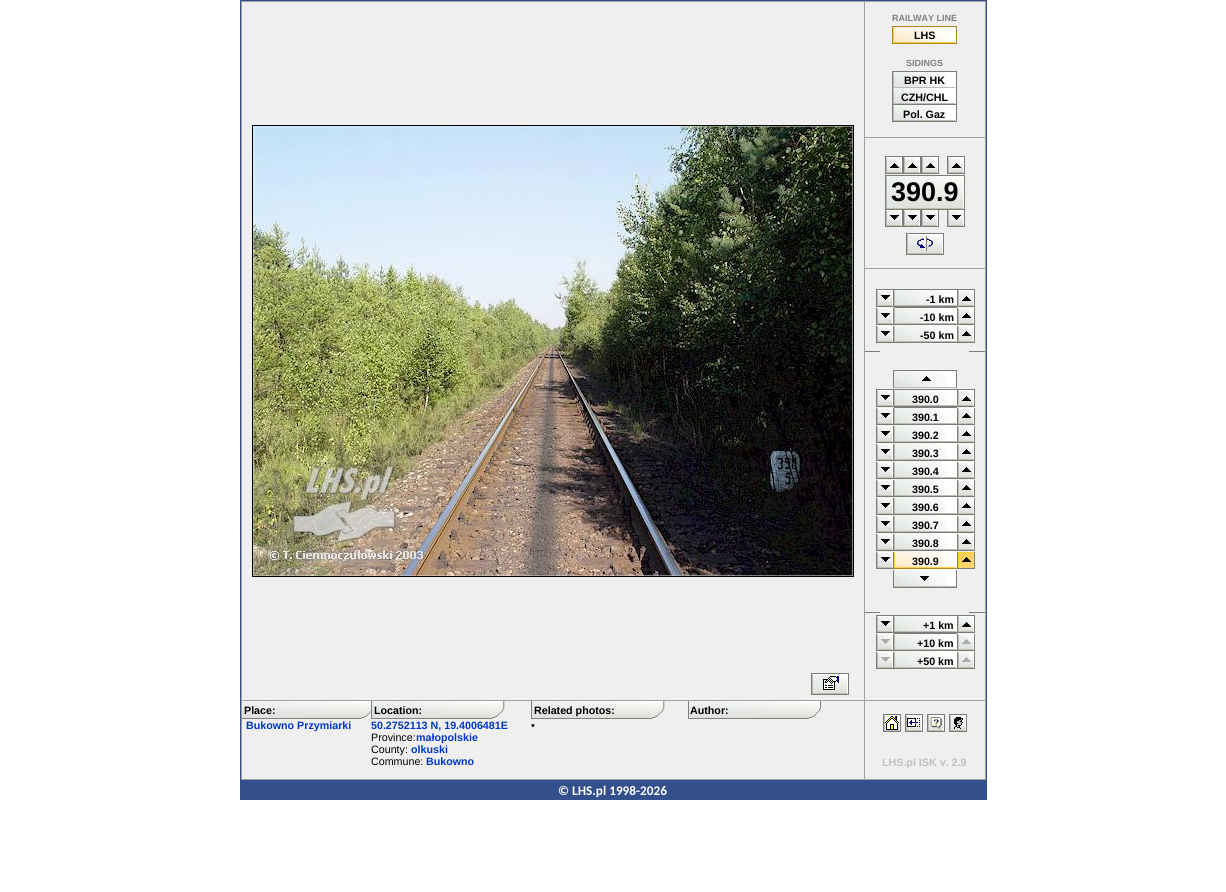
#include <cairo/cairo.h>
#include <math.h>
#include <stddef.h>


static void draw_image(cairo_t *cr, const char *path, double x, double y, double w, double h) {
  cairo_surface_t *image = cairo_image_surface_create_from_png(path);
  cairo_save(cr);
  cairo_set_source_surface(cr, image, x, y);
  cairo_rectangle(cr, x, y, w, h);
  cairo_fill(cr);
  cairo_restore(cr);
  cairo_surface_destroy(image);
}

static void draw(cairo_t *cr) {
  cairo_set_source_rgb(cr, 1, 1, 1);
  cairo_paint(cr);
  cairo_set_source_rgb(cr, 52 / 255.0, 80 / 255.0, 140 / 255.0);
  cairo_rectangle(cr, 240, 0, 747, 800);
  cairo_fill(cr);
  cairo_set_source_rgb(cr, 160 / 255.0, 160 / 255.0, 160 / 255.0);
  cairo_rectangle(cr, 241, 1, 745, 779);
  cairo_fill(cr);
  cairo_set_source_rgb(cr, 239 / 255.0, 239 / 255.0, 239 / 255.0);
  cairo_rectangle(cr, 242, 2, 622, 698);
  cairo_fill(cr);
  cairo_rectangle(cr, 252.5, 125.5, 601, 451);
  cairo_set_source_rgb(cr, 0, 0, 0);
  cairo_set_line_width(cr, 1);
  cairo_stroke(cr);
  draw_image(cr, "images/1.png", 253, 126, 600, 450);
  cairo_set_source_rgb(cr, 239 / 255.0, 239 / 255.0, 239 / 255.0);
  cairo_rectangle(cr, 865, 2, 120, 135);
  cairo_fill(cr);
  draw_image(cr, "images/2.png", 892, 26, 65, 18);
  draw_image(cr, "images/3.png", 892, 71, 65, 17);
  draw_image(cr, "images/4.png", 892, 88, 65, 17);
  draw_image(cr, "images/4.png", 892, 105, 65, 17);
  cairo_rectangle(cr, 865, 138, 120, 130);
  cairo_fill(cr);
  draw_image(cr, "images/5.png", 885, 156, 18, 18);
  draw_image(cr, "images/5.png", 903, 156, 18, 18);
  draw_image(cr, "images/5.png", 921, 156, 18, 18);
  draw_image(cr, "images/5.png", 947, 156, 18, 18);
  draw_image(cr, "images/6.png", 885, 175, 80, 35);
  draw_image(cr, "images/7.png", 885, 210, 18, 17);
  draw_image(cr, "images/7.png", 903, 210, 18, 17);
  draw_image(cr, "images/7.png", 921, 210, 18, 17);
  draw_image(cr, "images/7.png", 947, 210, 18, 17);
  draw_image(cr, "images/8.png", 906, 233, 38, 22);
  cairo_rectangle(cr, 865, 269, 120, 431);
  cairo_fill(cr);
  draw_image(cr, "images/9.png", 876, 289, 18, 18);
  draw_image(cr, "images/10.png", 894, 289, 63, 19);
  draw_image(cr, "images/5.png", 957, 289, 18, 18);
  draw_image(cr, "images/7.png", 876, 308, 18, 17);
  draw_image(cr, "images/11.png", 894, 308, 63, 18);
  draw_image(cr, "images/12.png", 957, 308, 18, 17);
  draw_image(cr, "images/7.png", 876, 326, 18, 17);
  draw_image(cr, "images/11.png", 894, 326, 63, 18);
  draw_image(cr, "images/12.png", 957, 326, 18, 17);
  draw_image(cr, "images/13.png", 865, 351, 120, 1);
  draw_image(cr, "images/14.png", 893, 370, 64, 18);
  draw_image(cr, "images/9.png", 876, 389, 18, 18);
  draw_image(cr, "images/10.png", 894, 389, 63, 19);
  draw_image(cr, "images/5.png", 957, 389, 18, 18);
  draw_image(cr, "images/7.png", 876, 408, 18, 17);
  draw_image(cr, "images/11.png", 894, 408, 63, 18);
  draw_image(cr, "images/12.png", 957, 408, 18, 17);
  draw_image(cr, "images/7.png", 876, 426, 18, 17);
  draw_image(cr, "images/11.png", 894, 426, 63, 18);
  draw_image(cr, "images/12.png", 957, 426, 18, 17);
  draw_image(cr, "images/7.png", 876, 444, 18, 17);
  draw_image(cr, "images/11.png", 894, 444, 63, 18);
  draw_image(cr, "images/12.png", 957, 444, 18, 17);
  draw_image(cr, "images/7.png", 876, 462, 18, 17);
  draw_image(cr, "images/11.png", 894, 462, 63, 18);
  draw_image(cr, "images/12.png", 957, 462, 18, 17);
  draw_image(cr, "images/7.png", 876, 480, 18, 17);
  draw_image(cr, "images/11.png", 894, 480, 63, 18);
  draw_image(cr, "images/12.png", 957, 480, 18, 17);
  draw_image(cr, "images/7.png", 876, 498, 18, 17);
  draw_image(cr, "images/11.png", 894, 498, 63, 18);
  draw_image(cr, "images/12.png", 957, 498, 18, 17);
  draw_image(cr, "images/7.png", 876, 516, 18, 17);
  draw_image(cr, "images/11.png", 894, 516, 63, 18);
  draw_image(cr, "images/12.png", 957, 516, 18, 17);
  draw_image(cr, "images/7.png", 876, 534, 18, 17);
  draw_image(cr, "images/11.png", 894, 534, 63, 18);
  draw_image(cr, "images/12.png", 957, 534, 18, 17);
  draw_image(cr, "images/7.png", 876, 552, 18, 17);
  draw_image(cr, "images/15.png", 894, 552, 63, 18);
  draw_image(cr, "images/16.png", 957, 552, 18, 17);
  draw_image(cr, "images/17.png", 893, 570, 64, 18);
  draw_image(cr, "images/13.png", 865, 612, 120, 1);
  draw_image(cr, "images/9.png", 876, 615, 18, 18);
  draw_image(cr, "images/10.png", 894, 615, 63, 19);
  draw_image(cr, "images/5.png", 957, 615, 18, 18);
  draw_image(cr, "images/18.png", 876, 634, 18, 17);
  draw_image(cr, "images/11.png", 894, 634, 63, 18);
  draw_image(cr, "images/19.png", 957, 634, 18, 17);
  draw_image(cr, "images/18.png", 876, 652, 18, 17);
  draw_image(cr, "images/11.png", 894, 652, 63, 18);
  draw_image(cr, "images/19.png", 957, 652, 18, 17);
  cairo_rectangle(cr, 242, 701, 622, 78);
  cairo_fill(cr);
  draw_image(cr, "images/20.png", 242, 701, 129, 18);
  draw_image(cr, "images/21.png", 371, 701, 134, 18);
  draw_image(cr, "images/22.png", 531, 701, 134, 18);
  draw_image(cr, "images/23.png", 688, 701, 133, 18);
  draw_image(cr, "images/24.png", 811, 673, 38, 22);
  cairo_rectangle(cr, 865, 701, 120, 78);
  cairo_fill(cr);
  draw_image(cr, "images/25.png", 883, 714, 18, 18);
  draw_image(cr, "images/26.png", 905, 714, 18, 18);
  draw_image(cr, "images/27.png", 927, 714, 18, 18);
  draw_image(cr, "images/28.png", 949, 714, 18, 18);
  cairo_select_font_face(cr, "Liberation Sans", CAIRO_FONT_SLANT_NORMAL, CAIRO_FONT_WEIGHT_BOLD);
  cairo_set_font_size(cr, 9);
  cairo_set_source_rgb(cr, 128 / 255.0, 128 / 255.0, 128 / 255.0);
  cairo_move_to(cr, 892, 21);
  cairo_show_text(cr, "RAILWAY LINE");
  cairo_set_font_size(cr, 10.7);
  cairo_set_source_rgb(cr, 0, 0, 0);
  cairo_move_to(cr, 914, 39);
  cairo_show_text(cr, "LHS");
  cairo_set_font_size(cr, 9);
  cairo_set_source_rgb(cr, 128 / 255.0, 128 / 255.0, 128 / 255.0);
  cairo_move_to(cr, 906, 66);
  cairo_show_text(cr, "SIDINGS");
  cairo_set_font_size(cr, 10.7);
  cairo_set_source_rgb(cr, 0, 0, 0);
  cairo_move_to(cr, 904, 84);
  cairo_show_text(cr, "BPR HK");
  cairo_move_to(cr, 901, 101);
  cairo_show_text(cr, "CZH/CHL");
  cairo_move_to(cr, 903, 118);
  cairo_show_text(cr, "Pol. Gaz");
  cairo_set_font_size(cr, 27);
  cairo_move_to(cr, 891, 201);
  cairo_show_text(cr, "390.9");
  cairo_set_font_size(cr, 10.7);
  cairo_move_to(cr, 926, 303);
  cairo_show_text(cr, "-1 km");
  cairo_move_to(cr, 920, 321);
  cairo_show_text(cr, "-10 km");
  cairo_move_to(cr, 920, 339);
  cairo_show_text(cr, "-50 km");
  cairo_move_to(cr, 912, 403);
  cairo_show_text(cr, "390.0");
  cairo_move_to(cr, 912, 421);
  cairo_show_text(cr, "390.1");
  cairo_move_to(cr, 912, 439);
  cairo_show_text(cr, "390.2");
  cairo_move_to(cr, 912, 457);
  cairo_show_text(cr, "390.3");
  cairo_move_to(cr, 912, 475);
  cairo_show_text(cr, "390.4");
  cairo_move_to(cr, 912, 493);
  cairo_show_text(cr, "390.5");
  cairo_move_to(cr, 912, 511);
  cairo_show_text(cr, "390.6");
  cairo_move_to(cr, 912, 529);
  cairo_show_text(cr, "390.7");
  cairo_move_to(cr, 912, 547);
  cairo_show_text(cr, "390.8");
  cairo_move_to(cr, 912, 565);
  cairo_show_text(cr, "390.9");
  cairo_move_to(cr, 923, 629);
  cairo_show_text(cr, "+1 km");
  cairo_move_to(cr, 917, 647);
  cairo_show_text(cr, "+10 km");
  cairo_move_to(cr, 917, 665);
  cairo_show_text(cr, "+50 km");
  cairo_move_to(cr, 244, 714);
  cairo_show_text(cr, "Place:");
  cairo_move_to(cr, 374, 714);
  cairo_show_text(cr, "Location:");
  cairo_move_to(cr, 534, 714);
  cairo_show_text(cr, "Related photos:");
  cairo_move_to(cr, 690, 714);
  cairo_show_text(cr, "Author:");
  cairo_set_source_rgb(cr, 0, 56 / 255.0, 195 / 255.0);
  cairo_move_to(cr, 246, 729);
  cairo_show_text(cr, "Bukowno Przymiarki");
  cairo_move_to(cr, 371, 729);
  cairo_show_text(cr, "50.2752113 N, 19.4006481E");
  cairo_select_font_face(cr, "Liberation Sans", CAIRO_FONT_SLANT_NORMAL, CAIRO_FONT_WEIGHT_NORMAL);
  cairo_set_source_rgb(cr, 0, 0, 0);
  cairo_move_to(cr, 371, 741);
  cairo_show_text(cr, "Province:");
  cairo_select_font_face(cr, "Liberation Sans", CAIRO_FONT_SLANT_NORMAL, CAIRO_FONT_WEIGHT_BOLD);
  cairo_set_source_rgb(cr, 0, 56 / 255.0, 195 / 255.0);
  cairo_move_to(cr, 416, 741);
  cairo_show_text(cr, "małopolskie");
  cairo_select_font_face(cr, "Liberation Sans", CAIRO_FONT_SLANT_NORMAL, CAIRO_FONT_WEIGHT_NORMAL);
  cairo_set_source_rgb(cr, 0, 0, 0);
  cairo_move_to(cr, 371, 753);
  cairo_show_text(cr, "County:");
  cairo_select_font_face(cr, "Liberation Sans", CAIRO_FONT_SLANT_NORMAL, CAIRO_FONT_WEIGHT_BOLD);
  cairo_set_source_rgb(cr, 0, 56 / 255.0, 195 / 255.0);
  cairo_move_to(cr, 411, 753);
  cairo_show_text(cr, "olkuski");
  cairo_select_font_face(cr, "Liberation Sans", CAIRO_FONT_SLANT_NORMAL, CAIRO_FONT_WEIGHT_NORMAL);
  cairo_set_source_rgb(cr, 0, 0, 0);
  cairo_move_to(cr, 371, 765);
  cairo_show_text(cr, "Commune:");
  cairo_select_font_face(cr, "Liberation Sans", CAIRO_FONT_SLANT_NORMAL, CAIRO_FONT_WEIGHT_BOLD);
  cairo_set_source_rgb(cr, 0, 56 / 255.0, 195 / 255.0);
  cairo_move_to(cr, 426, 765);
  cairo_show_text(cr, "Bukowno");
  cairo_select_font_face(cr, "Liberation Sans", CAIRO_FONT_SLANT_NORMAL, CAIRO_FONT_WEIGHT_NORMAL);
  cairo_set_source_rgb(cr, 0, 0, 0);
  cairo_move_to(cr, 531, 729);
  cairo_show_text(cr, "•");
  cairo_select_font_face(cr, "Liberation Sans", CAIRO_FONT_SLANT_NORMAL, CAIRO_FONT_WEIGHT_BOLD);
  cairo_set_source_rgb(cr, 192 / 255.0, 192 / 255.0, 192 / 255.0);
  cairo_move_to(cr, 882, 766);
  cairo_show_text(cr, "LHS.pl ISK v. 2.9");
  cairo_select_font_face(cr, "Carlito", CAIRO_FONT_SLANT_NORMAL, CAIRO_FONT_WEIGHT_BOLD);
  cairo_set_font_size(cr, 13.25);
  cairo_set_source_rgb(cr, 1, 1, 1);
  cairo_move_to(cr, 558, 795);
  cairo_show_text(cr, "© LHS.pl 1998-2026");
}

int main(void) {
  cairo_surface_t *surface = cairo_image_surface_create(CAIRO_FORMAT_RGB24, 1226, 892);
  cairo_t *cr = cairo_create(surface);
  cairo_font_options_t *options = cairo_font_options_create();
  cairo_font_options_set_hint_metrics(options, CAIRO_HINT_METRICS_OFF);
  cairo_font_options_set_hint_style(options, CAIRO_HINT_STYLE_NONE);
  cairo_set_font_options(cr, options);
  cairo_set_miter_limit(cr, 4);
  draw(cr);
  cairo_surface_write_to_png(surface, "out.png");
  cairo_font_options_destroy(options);
  cairo_destroy(cr);
  cairo_surface_destroy(surface);
  return 0;
}
